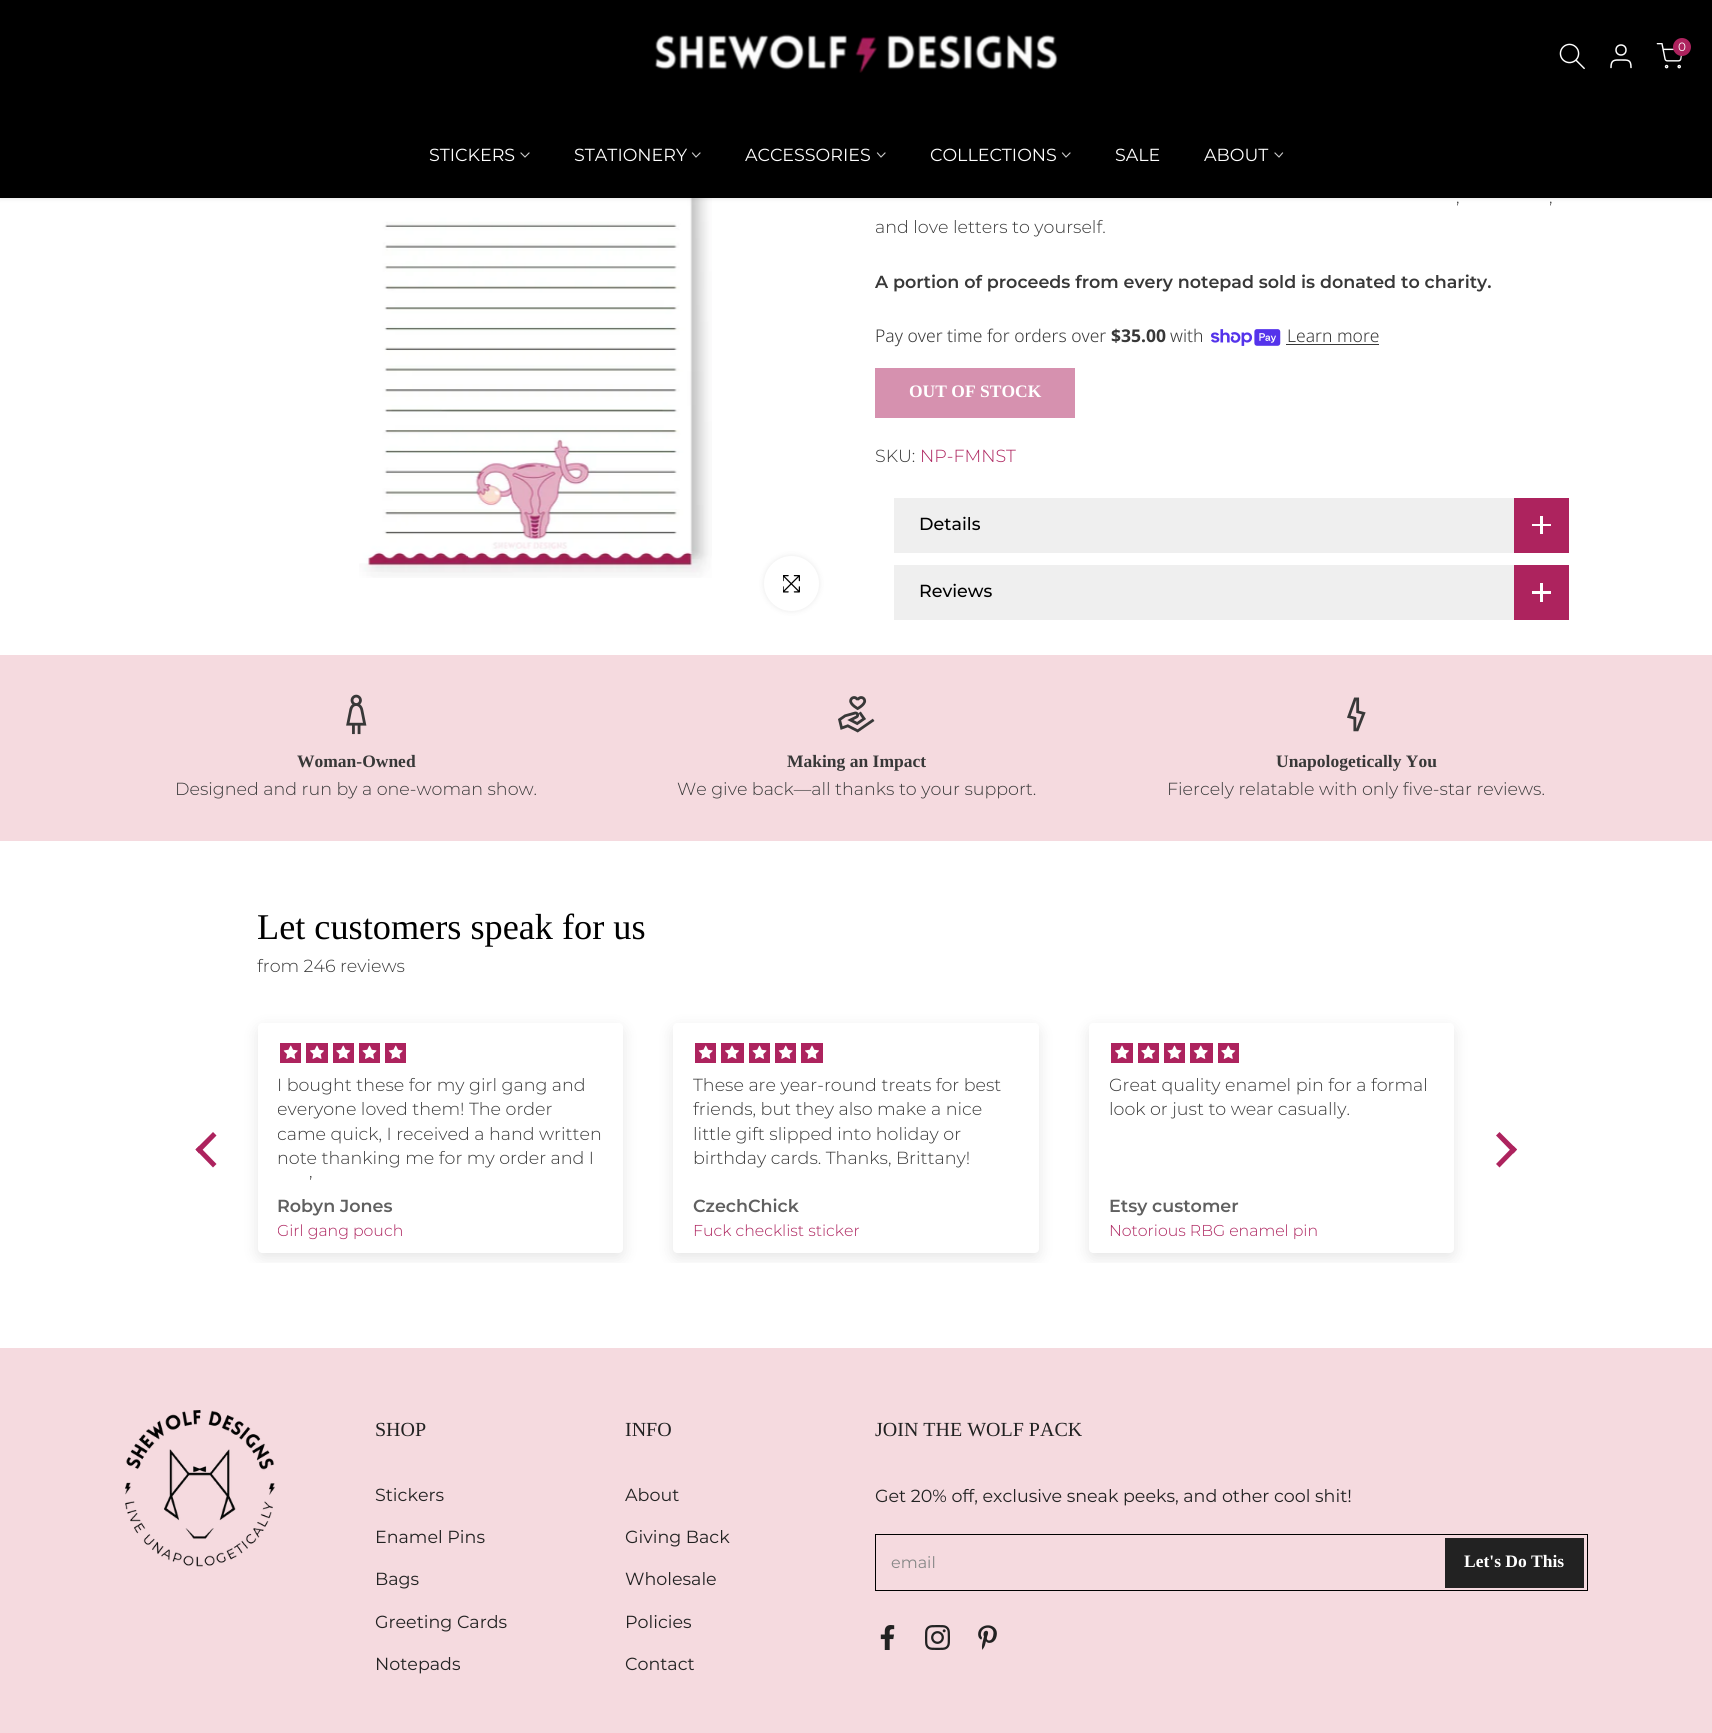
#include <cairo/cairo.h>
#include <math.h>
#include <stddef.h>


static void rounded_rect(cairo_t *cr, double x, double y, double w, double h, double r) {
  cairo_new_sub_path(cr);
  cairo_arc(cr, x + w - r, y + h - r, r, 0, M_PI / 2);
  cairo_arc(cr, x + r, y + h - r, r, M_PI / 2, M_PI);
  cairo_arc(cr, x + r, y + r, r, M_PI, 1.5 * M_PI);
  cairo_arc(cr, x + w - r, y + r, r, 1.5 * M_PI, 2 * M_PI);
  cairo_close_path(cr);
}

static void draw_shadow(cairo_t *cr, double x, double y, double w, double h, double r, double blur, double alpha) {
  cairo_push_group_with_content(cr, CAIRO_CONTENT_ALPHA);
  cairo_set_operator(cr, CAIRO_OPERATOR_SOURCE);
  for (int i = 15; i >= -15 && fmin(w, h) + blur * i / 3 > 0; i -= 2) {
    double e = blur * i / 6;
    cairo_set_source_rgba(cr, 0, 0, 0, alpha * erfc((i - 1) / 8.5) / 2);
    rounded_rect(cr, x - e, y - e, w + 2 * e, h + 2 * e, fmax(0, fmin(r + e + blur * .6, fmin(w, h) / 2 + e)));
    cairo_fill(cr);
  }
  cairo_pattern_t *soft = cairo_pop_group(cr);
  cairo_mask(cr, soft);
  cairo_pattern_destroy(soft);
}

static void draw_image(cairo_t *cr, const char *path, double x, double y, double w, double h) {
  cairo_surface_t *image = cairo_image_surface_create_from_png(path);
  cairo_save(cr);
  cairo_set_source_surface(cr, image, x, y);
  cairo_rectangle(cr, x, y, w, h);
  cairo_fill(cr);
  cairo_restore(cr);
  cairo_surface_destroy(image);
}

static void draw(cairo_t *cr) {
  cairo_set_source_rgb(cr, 1, 1, 1);
  cairo_paint(cr);
  draw_image(cr, "images/4.png", 359, 198, 353, 380);
  cairo_set_source_rgb(cr, 0, 0, 0);
  draw_shadow(cr, 0, 1, 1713, 198, 0, 2, 0.1);
  cairo_set_source_rgb(cr, 0, 0, 0);
  cairo_rectangle(cr, 0, 0, 1712, 198);
  cairo_fill(cr);
  draw_image(cr, "images/1.png", 654, 34, 404, 39);
  draw_image(cr, "images/2.png", 1559, 43, 26, 27);
  cairo_arc(cr, 1621, 50, 5, 0, 2 * M_PI);
  cairo_set_source_rgb(cr, 1, 1, 1);
  cairo_set_line_width(cr, 1.5);
  cairo_stroke(cr);
  cairo_new_path(cr);
  cairo_move_to(cr, 1631, 67.5);
  cairo_curve_to(cr, 1631, 59.5, 1628, 60, 1621, 60);
  cairo_curve_to(cr, 1614.5, 60, 1611, 59.5, 1611, 67.5);
  cairo_set_line_cap(cr, CAIRO_LINE_CAP_ROUND);
  cairo_set_line_join(cr, CAIRO_LINE_JOIN_ROUND);
  cairo_stroke(cr);
  draw_image(cr, "images/3.png", 1656, 43, 27, 26);
  cairo_set_source_rgb(cr, 0, 0, 0);
  draw_shadow(cr, 1674, 39, 19, 19, 9.5, 2, 0.3);
  cairo_set_source_rgb(cr, 173 / 255.0, 35 / 255.0, 94 / 255.0);
  cairo_arc(cr, 1682, 47, 9, 0, 2 * M_PI);
  cairo_fill(cr);
  cairo_new_path(cr);
  cairo_move_to(cr, 529, 153);
  cairo_line_to(cr, 525, 157);
  cairo_line_to(cr, 521, 153);
  cairo_set_source_rgb(cr, 204 / 255.0, 204 / 255.0, 204 / 255.0);
  cairo_set_line_width(cr, 1.1);
  cairo_set_line_cap(cr, CAIRO_LINE_CAP_SQUARE);
  cairo_set_line_join(cr, CAIRO_LINE_JOIN_MITER);
  cairo_stroke(cr);
  cairo_new_path(cr);
  cairo_move_to(cr, 700, 153);
  cairo_line_to(cr, 696, 157);
  cairo_line_to(cr, 692.5, 153);
  cairo_stroke(cr);
  cairo_new_path(cr);
  cairo_move_to(cr, 885, 153);
  cairo_line_to(cr, 881, 157);
  cairo_line_to(cr, 877.5, 153);
  cairo_stroke(cr);
  cairo_new_path(cr);
  cairo_move_to(cr, 1070, 153);
  cairo_line_to(cr, 1066, 157);
  cairo_line_to(cr, 1062.5, 153);
  cairo_stroke(cr);
  cairo_new_path(cr);
  cairo_move_to(cr, 1282.5, 153);
  cairo_line_to(cr, 1279, 157);
  cairo_line_to(cr, 1275, 153);
  cairo_stroke(cr);
  cairo_set_source_rgb(cr, 0, 0, 0);
  draw_shadow(cr, 764, 556, 55, 55, 27.5, 3, 0.09);
  cairo_set_source_rgb(cr, 1, 1, 1);
  cairo_arc(cr, 791.5, 583.5, 27.5, 0, 2 * M_PI);
  cairo_fill(cr);
  draw_image(cr, "images/5.png", 783, 575, 17, 18);
  draw_image(cr, "images/6.png", 1211, 329, 70, 17);
  cairo_set_source_rgb(cr, 56 / 255.0, 56 / 255.0, 56 / 255.0);
  cairo_rectangle(cr, 1286, 344, 93, 1);
  cairo_fill(cr);
  cairo_set_source_rgb(cr, 214 / 255.0, 145 / 255.0, 175 / 255.0);
  cairo_rectangle(cr, 875, 368, 200, 50);
  cairo_fill(cr);
  cairo_set_source_rgb(cr, 239 / 255.0, 239 / 255.0, 239 / 255.0);
  cairo_rectangle(cr, 894, 498, 620, 55);
  cairo_fill(cr);
  cairo_set_source_rgb(cr, 173 / 255.0, 35 / 255.0, 94 / 255.0);
  cairo_rectangle(cr, 1514, 498, 55, 55);
  cairo_fill(cr);
  cairo_set_source_rgb(cr, 1, 1, 1);
  cairo_rectangle(cr, 1540, 516, 3, 18);
  cairo_fill(cr);
  cairo_rectangle(cr, 1532, 524, 19, 2);
  cairo_fill(cr);
  cairo_set_source_rgb(cr, 239 / 255.0, 239 / 255.0, 239 / 255.0);
  cairo_rectangle(cr, 894, 565, 620, 55);
  cairo_fill(cr);
  cairo_set_source_rgb(cr, 173 / 255.0, 35 / 255.0, 94 / 255.0);
  cairo_rectangle(cr, 1514, 565, 55, 55);
  cairo_fill(cr);
  cairo_set_source_rgb(cr, 1, 1, 1);
  cairo_rectangle(cr, 1540, 583, 3, 19);
  cairo_fill(cr);
  cairo_rectangle(cr, 1532, 591, 19, 3);
  cairo_fill(cr);
  cairo_set_source_rgb(cr, 245 / 255.0, 218 / 255.0, 223 / 255.0);
  cairo_rectangle(cr, 0, 655, 1712, 186);
  cairo_fill(cr);
  draw_image(cr, "images/7.png", 346, 694, 21, 41);
  draw_image(cr, "images/8.png", 838, 696, 37, 37);
  draw_image(cr, "images/9.png", 1347, 697, 19, 35);
  cairo_save(cr);
  cairo_rectangle(cr, 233, 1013, 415, 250);
  cairo_clip(cr);
  cairo_set_fill_rule(cr, CAIRO_FILL_RULE_EVEN_ODD);
  cairo_new_path(cr);
  cairo_move_to(cr, 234, 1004);
  cairo_line_to(cr, 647, 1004);
  cairo_line_to(cr, 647, 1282);
  cairo_line_to(cr, 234, 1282);
  cairo_close_path(cr);
  cairo_move_to(cr, 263, 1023);
  cairo_line_to(cr, 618, 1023);
  cairo_curve_to(cr, 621, 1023, 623, 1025, 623, 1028);
  cairo_line_to(cr, 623, 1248);
  cairo_curve_to(cr, 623, 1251, 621, 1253, 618, 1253);
  cairo_line_to(cr, 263, 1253);
  cairo_curve_to(cr, 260, 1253, 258, 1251, 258, 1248);
  cairo_line_to(cr, 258, 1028);
  cairo_curve_to(cr, 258, 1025, 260, 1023, 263, 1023);
  cairo_close_path(cr);
  cairo_clip(cr);
  cairo_set_source_rgb(cr, 0, 0, 0);
  draw_shadow(cr, 258, 1028, 365, 230, 5, 7.5, 0.1);
  cairo_restore(cr);
  cairo_set_source_rgb(cr, 173 / 255.0, 35 / 255.0, 94 / 255.0);
  cairo_rectangle(cr, 280, 1043, 21, 20);
  cairo_fill(cr);
  cairo_rectangle(cr, 306, 1043, 22, 20);
  cairo_fill(cr);
  cairo_rectangle(cr, 333, 1043, 21, 20);
  cairo_fill(cr);
  cairo_rectangle(cr, 359, 1043, 21, 20);
  cairo_fill(cr);
  cairo_rectangle(cr, 385, 1043, 21, 20);
  cairo_fill(cr);
  draw_image(cr, "images/10.png", 283, 1045, 15, 14);
  draw_image(cr, "images/11.png", 310, 1045, 14, 14);
  draw_image(cr, "images/12.png", 336, 1045, 15, 14);
  draw_image(cr, "images/13.png", 362, 1045, 15, 14);
  draw_image(cr, "images/10.png", 388, 1045, 15, 14);
  cairo_save(cr);
  cairo_rectangle(cr, 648, 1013, 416, 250);
  cairo_clip(cr);
  cairo_set_fill_rule(cr, CAIRO_FILL_RULE_EVEN_ODD);
  cairo_new_path(cr);
  cairo_move_to(cr, 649, 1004);
  cairo_line_to(cr, 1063, 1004);
  cairo_line_to(cr, 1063, 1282);
  cairo_line_to(cr, 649, 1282);
  cairo_close_path(cr);
  cairo_move_to(cr, 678, 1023);
  cairo_line_to(cr, 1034, 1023);
  cairo_curve_to(cr, 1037, 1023, 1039, 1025, 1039, 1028);
  cairo_line_to(cr, 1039, 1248);
  cairo_curve_to(cr, 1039, 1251, 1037, 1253, 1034, 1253);
  cairo_line_to(cr, 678, 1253);
  cairo_curve_to(cr, 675, 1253, 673, 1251, 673, 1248);
  cairo_line_to(cr, 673, 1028);
  cairo_curve_to(cr, 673, 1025, 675, 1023, 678, 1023);
  cairo_close_path(cr);
  cairo_clip(cr);
  cairo_set_source_rgb(cr, 0, 0, 0);
  draw_shadow(cr, 673, 1028, 366, 230, 5, 7.5, 0.1);
  cairo_restore(cr);
  cairo_rectangle(cr, 695, 1043, 21, 20);
  cairo_fill(cr);
  cairo_rectangle(cr, 721, 1043, 23, 20);
  cairo_fill(cr);
  cairo_rectangle(cr, 749, 1043, 21, 20);
  cairo_fill(cr);
  cairo_rectangle(cr, 775, 1043, 21, 20);
  cairo_fill(cr);
  cairo_rectangle(cr, 801, 1043, 22, 20);
  cairo_fill(cr);
  draw_image(cr, "images/10.png", 698, 1045, 15, 14);
  draw_image(cr, "images/11.png", 725, 1045, 14, 14);
  draw_image(cr, "images/13.png", 752, 1045, 15, 14);
  draw_image(cr, "images/10.png", 778, 1045, 15, 14);
  draw_image(cr, "images/11.png", 805, 1045, 14, 14);
  cairo_save(cr);
  cairo_rectangle(cr, 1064, 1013, 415, 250);
  cairo_clip(cr);
  cairo_set_fill_rule(cr, CAIRO_FILL_RULE_EVEN_ODD);
  cairo_new_path(cr);
  cairo_move_to(cr, 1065, 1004);
  cairo_line_to(cr, 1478, 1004);
  cairo_line_to(cr, 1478, 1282);
  cairo_line_to(cr, 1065, 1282);
  cairo_close_path(cr);
  cairo_move_to(cr, 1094, 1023);
  cairo_line_to(cr, 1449, 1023);
  cairo_curve_to(cr, 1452, 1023, 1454, 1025, 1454, 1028);
  cairo_line_to(cr, 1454, 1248);
  cairo_curve_to(cr, 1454, 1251, 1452, 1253, 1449, 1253);
  cairo_line_to(cr, 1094, 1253);
  cairo_curve_to(cr, 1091, 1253, 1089, 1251, 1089, 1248);
  cairo_line_to(cr, 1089, 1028);
  cairo_curve_to(cr, 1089, 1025, 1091, 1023, 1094, 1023);
  cairo_close_path(cr);
  cairo_clip(cr);
  cairo_set_source_rgb(cr, 0, 0, 0);
  draw_shadow(cr, 1089, 1028, 365, 230, 5, 7.5, 0.1);
  cairo_restore(cr);
  cairo_rectangle(cr, 1111, 1043, 22, 20);
  cairo_fill(cr);
  cairo_rectangle(cr, 1138, 1043, 21, 20);
  cairo_fill(cr);
  cairo_rectangle(cr, 1164, 1043, 21, 20);
  cairo_fill(cr);
  cairo_rectangle(cr, 1190, 1043, 23, 20);
  cairo_fill(cr);
  cairo_rectangle(cr, 1218, 1043, 21, 20);
  cairo_fill(cr);
  draw_image(cr, "images/11.png", 1115, 1045, 14, 14);
  draw_image(cr, "images/12.png", 1141, 1045, 15, 14);
  draw_image(cr, "images/13.png", 1167, 1045, 15, 14);
  draw_image(cr, "images/10.png", 1193, 1045, 15, 14);
  draw_image(cr, "images/12.png", 1221, 1045, 15, 14);
  cairo_new_path(cr);
  cairo_move_to(cr, 195.5, 1149.5);
  cairo_line_to(cr, 213, 1132);
  cairo_line_to(cr, 216.5, 1135.5);
  cairo_line_to(cr, 199, 1153.5);
  cairo_close_path(cr);
  cairo_fill(cr);
  cairo_new_path(cr);
  cairo_move_to(cr, 195.5, 1149.5);
  cairo_line_to(cr, 199, 1146);
  cairo_line_to(cr, 216.5, 1164);
  cairo_line_to(cr, 213, 1167.5);
  cairo_close_path(cr);
  cairo_fill(cr);
  cairo_new_path(cr);
  cairo_move_to(cr, 1496, 1135.5);
  cairo_line_to(cr, 1499.5, 1132);
  cairo_line_to(cr, 1517, 1149.5);
  cairo_line_to(cr, 1513.5, 1153.5);
  cairo_close_path(cr);
  cairo_fill(cr);
  cairo_new_path(cr);
  cairo_move_to(cr, 1496, 1164);
  cairo_line_to(cr, 1513.5, 1146);
  cairo_line_to(cr, 1517, 1149.5);
  cairo_line_to(cr, 1499.5, 1167.5);
  cairo_close_path(cr);
  cairo_fill(cr);
  cairo_set_source_rgb(cr, 245 / 255.0, 218 / 255.0, 223 / 255.0);
  cairo_rectangle(cr, 0, 1348, 1712, 385);
  cairo_fill(cr);
  draw_image(cr, "images/14.png", 125, 1410, 150, 157);
  cairo_rectangle(cr, 875.5, 1534.5, 712, 56);
  cairo_set_source_rgb(cr, 0, 0, 0);
  cairo_set_line_width(cr, 1);
  cairo_set_line_cap(cr, CAIRO_LINE_CAP_BUTT);
  cairo_stroke(cr);
  cairo_set_source_rgb(cr, 34 / 255.0, 34 / 255.0, 34 / 255.0);
  cairo_rectangle(cr, 1445, 1538, 139, 50);
  cairo_fill(cr);
  draw_image(cr, "images/15.png", 880, 1625, 15, 25);
  draw_image(cr, "images/16.png", 925, 1625, 25, 25);
  draw_image(cr, "images/17.png", 978, 1625, 19, 25);
  cairo_select_font_face(cr, "Montserrat", CAIRO_FONT_SLANT_NORMAL, CAIRO_FONT_WEIGHT_NORMAL);
  cairo_set_font_size(cr, 12);
  cairo_set_source_rgb(cr, 1, 1, 1);
  cairo_move_to(cr, 1678, 51);
  cairo_show_text(cr, "0");
  cairo_set_font_size(cr, 17.5);
  cairo_move_to(cr, 429, 161);
  cairo_show_text(cr, "STICKERS");
  cairo_move_to(cr, 574, 161);
  cairo_show_text(cr, "STATIONERY");
  cairo_move_to(cr, 745, 161);
  cairo_show_text(cr, "ACCESSORIES");
  cairo_move_to(cr, 930, 161);
  cairo_show_text(cr, "COLLECTIONS");
  cairo_move_to(cr, 1115, 161);
  cairo_show_text(cr, "SALE");
  cairo_move_to(cr, 1204, 161);
  cairo_show_text(cr, "ABOUT");
  cairo_select_font_face(cr, "Montserrat Light", CAIRO_FONT_SLANT_NORMAL, CAIRO_FONT_WEIGHT_NORMAL);
  cairo_set_source_rgb(cr, 56 / 255.0, 56 / 255.0, 56 / 255.0);
  cairo_move_to(cr, 1456, 203);
  cairo_show_text(cr, ",");
  cairo_move_to(cr, 1549, 203);
  cairo_show_text(cr, ",");
  cairo_move_to(cr, 875, 233);
  cairo_show_text(cr, "and love letters to yourself.");
  cairo_select_font_face(cr, "Montserrat SemiBold", CAIRO_FONT_SLANT_NORMAL, CAIRO_FONT_WEIGHT_NORMAL);
  cairo_move_to(cr, 875, 288);
  cairo_show_text(cr, "A portion of proceeds from every notepad sold is donated to charity.");
  cairo_select_font_face(cr, "Noto Sans Light", CAIRO_FONT_SLANT_NORMAL, CAIRO_FONT_WEIGHT_NORMAL);
  cairo_move_to(cr, 875, 342);
  cairo_show_text(cr, "Pay over time for orders over");
  cairo_select_font_face(cr, "Noto Sans", CAIRO_FONT_SLANT_NORMAL, CAIRO_FONT_WEIGHT_BOLD);
  cairo_move_to(cr, 1111, 342);
  cairo_show_text(cr, "$35.00");
  cairo_select_font_face(cr, "Noto Sans Light", CAIRO_FONT_SLANT_NORMAL, CAIRO_FONT_WEIGHT_NORMAL);
  cairo_move_to(cr, 1170, 342);
  cairo_show_text(cr, "with");
  cairo_move_to(cr, 1287, 342);
  cairo_show_text(cr, "Learn more");
  cairo_select_font_face(cr, "Liberation Serif", CAIRO_FONT_SLANT_NORMAL, CAIRO_FONT_WEIGHT_BOLD);
  cairo_set_source_rgb(cr, 1, 1, 1);
  cairo_move_to(cr, 909, 397);
  cairo_show_text(cr, "OUT OF STOCK");
  cairo_select_font_face(cr, "Montserrat Light", CAIRO_FONT_SLANT_NORMAL, CAIRO_FONT_WEIGHT_NORMAL);
  cairo_set_source_rgb(cr, 56 / 255.0, 56 / 255.0, 56 / 255.0);
  cairo_move_to(cr, 875, 462);
  cairo_show_text(cr, "SKU:");
  cairo_set_source_rgb(cr, 173 / 255.0, 35 / 255.0, 94 / 255.0);
  cairo_move_to(cr, 920, 462);
  cairo_show_text(cr, "NP-FMNST");
  cairo_select_font_face(cr, "Montserrat Medium", CAIRO_FONT_SLANT_NORMAL, CAIRO_FONT_WEIGHT_NORMAL);
  cairo_set_source_rgb(cr, 0, 0, 0);
  cairo_move_to(cr, 919, 530);
  cairo_show_text(cr, "Details");
  cairo_move_to(cr, 919, 597);
  cairo_show_text(cr, "Reviews");
  cairo_select_font_face(cr, "Liberation Serif", CAIRO_FONT_SLANT_NORMAL, CAIRO_FONT_WEIGHT_BOLD);
  cairo_set_source_rgb(cr, 56 / 255.0, 56 / 255.0, 56 / 255.0);
  cairo_move_to(cr, 297, 767);
  cairo_show_text(cr, "Woman-Owned");
  cairo_select_font_face(cr, "Montserrat Light", CAIRO_FONT_SLANT_NORMAL, CAIRO_FONT_WEIGHT_NORMAL);
  cairo_move_to(cr, 175, 795);
  cairo_show_text(cr, "Designed and run by a one-woman show.");
  cairo_select_font_face(cr, "Liberation Serif", CAIRO_FONT_SLANT_NORMAL, CAIRO_FONT_WEIGHT_BOLD);
  cairo_move_to(cr, 787, 767);
  cairo_show_text(cr, "Making an Impact");
  cairo_select_font_face(cr, "Montserrat Light", CAIRO_FONT_SLANT_NORMAL, CAIRO_FONT_WEIGHT_NORMAL);
  cairo_move_to(cr, 677, 795);
  cairo_show_text(cr, "We give back—all thanks to your support.");
  cairo_select_font_face(cr, "Liberation Serif", CAIRO_FONT_SLANT_NORMAL, CAIRO_FONT_WEIGHT_BOLD);
  cairo_move_to(cr, 1276, 767);
  cairo_show_text(cr, "Unapologetically You");
  cairo_select_font_face(cr, "Montserrat Light", CAIRO_FONT_SLANT_NORMAL, CAIRO_FONT_WEIGHT_NORMAL);
  cairo_move_to(cr, 1167, 795);
  cairo_show_text(cr, "Fiercely relatable with only five-star reviews.");
  cairo_select_font_face(cr, "Liberation Serif", CAIRO_FONT_SLANT_NORMAL, CAIRO_FONT_WEIGHT_NORMAL);
  cairo_set_font_size(cr, 36.25);
  cairo_set_source_rgb(cr, 0, 0, 0);
  cairo_move_to(cr, 257, 939);
  cairo_show_text(cr, "Let customers speak for us");
  cairo_select_font_face(cr, "Montserrat Light", CAIRO_FONT_SLANT_NORMAL, CAIRO_FONT_WEIGHT_NORMAL);
  cairo_set_font_size(cr, 17.5);
  cairo_set_source_rgb(cr, 56 / 255.0, 56 / 255.0, 56 / 255.0);
  cairo_move_to(cr, 257, 972);
  cairo_show_text(cr, "from 246 reviews");
  cairo_move_to(cr, 277, 1091);
  cairo_show_text(cr, "I bought these for my girl gang and");
  cairo_save(cr);
  cairo_rectangle(cr, 278, 1043, 325, 142);
  cairo_clip(cr);
  cairo_move_to(cr, 277, 1115);
  cairo_show_text(cr, "everyone loved them! The order");
  cairo_move_to(cr, 277, 1140);
  cairo_show_text(cr, "came quick, I received a hand written");
  cairo_restore(cr);
  cairo_move_to(cr, 277, 1164);
  cairo_show_text(cr, "note thanking me for my order and I");
  cairo_move_to(cr, 309, 1189);
  cairo_show_text(cr, "’");
  cairo_select_font_face(cr, "Montserrat SemiBold", CAIRO_FONT_SLANT_NORMAL, CAIRO_FONT_WEIGHT_NORMAL);
  cairo_set_source_rgb(cr, 96 / 255.0, 96 / 255.0, 96 / 255.0);
  cairo_move_to(cr, 277, 1212);
  cairo_show_text(cr, "Robyn Jones");
  cairo_save(cr);
  cairo_rectangle(cr, 278, 1220, 325, 21);
  cairo_clip(cr);
  cairo_select_font_face(cr, "Montserrat Light", CAIRO_FONT_SLANT_NORMAL, CAIRO_FONT_WEIGHT_NORMAL);
  cairo_set_font_size(cr, 15.75);
  cairo_set_source_rgb(cr, 173 / 255.0, 35 / 255.0, 94 / 255.0);
  cairo_move_to(cr, 277, 1236);
  cairo_show_text(cr, "Girl gang pouch");
  cairo_restore(cr);
  cairo_select_font_face(cr, "Montserrat Light", CAIRO_FONT_SLANT_NORMAL, CAIRO_FONT_WEIGHT_NORMAL);
  cairo_set_source_rgb(cr, 56 / 255.0, 56 / 255.0, 56 / 255.0);
  cairo_move_to(cr, 693, 1091);
  cairo_show_text(cr, "These are year-round treats for best");
  cairo_move_to(cr, 693, 1115);
  cairo_show_text(cr, "friends, but they also make a nice");
  cairo_move_to(cr, 693, 1140);
  cairo_show_text(cr, "little gift slipped into holiday or");
  cairo_move_to(cr, 693, 1164);
  cairo_show_text(cr, "birthday cards. Thanks, Brittany!");
  cairo_select_font_face(cr, "Montserrat SemiBold", CAIRO_FONT_SLANT_NORMAL, CAIRO_FONT_WEIGHT_NORMAL);
  cairo_set_source_rgb(cr, 96 / 255.0, 96 / 255.0, 96 / 255.0);
  cairo_move_to(cr, 693, 1212);
  cairo_show_text(cr, "CzechChick");
  cairo_select_font_face(cr, "Montserrat Light", CAIRO_FONT_SLANT_NORMAL, CAIRO_FONT_WEIGHT_NORMAL);
  cairo_set_font_size(cr, 15.75);
  cairo_set_source_rgb(cr, 173 / 255.0, 35 / 255.0, 94 / 255.0);
  cairo_move_to(cr, 693, 1236);
  cairo_show_text(cr, "Fuck checklist sticker");
  cairo_set_font_size(cr, 17.5);
  cairo_set_source_rgb(cr, 56 / 255.0, 56 / 255.0, 56 / 255.0);
  cairo_move_to(cr, 1109, 1091);
  cairo_show_text(cr, "Great quality enamel pin for a formal");
  cairo_move_to(cr, 1109, 1115);
  cairo_show_text(cr, "look or just to wear casually.");
  cairo_select_font_face(cr, "Montserrat SemiBold", CAIRO_FONT_SLANT_NORMAL, CAIRO_FONT_WEIGHT_NORMAL);
  cairo_set_source_rgb(cr, 96 / 255.0, 96 / 255.0, 96 / 255.0);
  cairo_move_to(cr, 1109, 1212);
  cairo_show_text(cr, "Etsy customer");
  cairo_select_font_face(cr, "Montserrat Light", CAIRO_FONT_SLANT_NORMAL, CAIRO_FONT_WEIGHT_NORMAL);
  cairo_set_font_size(cr, 15.75);
  cairo_set_source_rgb(cr, 173 / 255.0, 35 / 255.0, 94 / 255.0);
  cairo_move_to(cr, 1109, 1236);
  cairo_show_text(cr, "Notorious RBG enamel pin");
  cairo_select_font_face(cr, "Liberation Serif", CAIRO_FONT_SLANT_NORMAL, CAIRO_FONT_WEIGHT_NORMAL);
  cairo_set_font_size(cr, 20);
  cairo_set_source_rgb(cr, 34 / 255.0, 34 / 255.0, 34 / 255.0);
  cairo_move_to(cr, 375, 1436);
  cairo_show_text(cr, "SHOP");
  cairo_select_font_face(cr, "Montserrat", CAIRO_FONT_SLANT_NORMAL, CAIRO_FONT_WEIGHT_NORMAL);
  cairo_set_font_size(cr, 17.5);
  cairo_move_to(cr, 375, 1501);
  cairo_show_text(cr, "Stickers");
  cairo_move_to(cr, 375, 1543);
  cairo_show_text(cr, "Enamel Pins");
  cairo_move_to(cr, 375, 1585);
  cairo_show_text(cr, "Bags");
  cairo_move_to(cr, 375, 1628);
  cairo_show_text(cr, "Greeting Cards");
  cairo_move_to(cr, 375, 1670);
  cairo_show_text(cr, "Notepads");
  cairo_select_font_face(cr, "Liberation Serif", CAIRO_FONT_SLANT_NORMAL, CAIRO_FONT_WEIGHT_NORMAL);
  cairo_set_font_size(cr, 20);
  cairo_move_to(cr, 625, 1436);
  cairo_show_text(cr, "INFO");
  cairo_select_font_face(cr, "Montserrat", CAIRO_FONT_SLANT_NORMAL, CAIRO_FONT_WEIGHT_NORMAL);
  cairo_set_font_size(cr, 17.5);
  cairo_move_to(cr, 625, 1501);
  cairo_show_text(cr, "About");
  cairo_move_to(cr, 625, 1543);
  cairo_show_text(cr, "Giving Back");
  cairo_move_to(cr, 625, 1585);
  cairo_show_text(cr, "Wholesale");
  cairo_move_to(cr, 625, 1628);
  cairo_show_text(cr, "Policies");
  cairo_move_to(cr, 625, 1670);
  cairo_show_text(cr, "Contact");
  cairo_select_font_face(cr, "Liberation Serif", CAIRO_FONT_SLANT_NORMAL, CAIRO_FONT_WEIGHT_NORMAL);
  cairo_set_font_size(cr, 20);
  cairo_move_to(cr, 875, 1436);
  cairo_show_text(cr, "JOIN THE WOLF PACK");
  cairo_select_font_face(cr, "Montserrat", CAIRO_FONT_SLANT_NORMAL, CAIRO_FONT_WEIGHT_NORMAL);
  cairo_set_font_size(cr, 17.5);
  cairo_move_to(cr, 875, 1502);
  cairo_show_text(cr, "Get 20% off, exclusive sneak peeks, and other cool shit!");
  cairo_set_font_size(cr, 16);
  cairo_set_source_rgb(cr, 135 / 255.0, 135 / 255.0, 135 / 255.0);
  cairo_move_to(cr, 891, 1568);
  cairo_show_text(cr, "email");
  cairo_select_font_face(cr, "Liberation Serif", CAIRO_FONT_SLANT_NORMAL, CAIRO_FONT_WEIGHT_BOLD);
  cairo_set_font_size(cr, 17.5);
  cairo_set_source_rgb(cr, 1, 1, 1);
  cairo_move_to(cr, 1464, 1567);
  cairo_show_text(cr, "Let's Do This");
}

int main(void) {
  cairo_surface_t *surface = cairo_image_surface_create(CAIRO_FORMAT_RGB24, 1712, 1733);
  cairo_t *cr = cairo_create(surface);
  cairo_font_options_t *options = cairo_font_options_create();
  cairo_font_options_set_hint_metrics(options, CAIRO_HINT_METRICS_OFF);
  cairo_font_options_set_hint_style(options, CAIRO_HINT_STYLE_NONE);
  cairo_set_font_options(cr, options);
  cairo_set_miter_limit(cr, 4);
  draw(cr);
  cairo_surface_write_to_png(surface, "out.png");
  cairo_font_options_destroy(options);
  cairo_destroy(cr);
  cairo_surface_destroy(surface);
  return 0;
}
